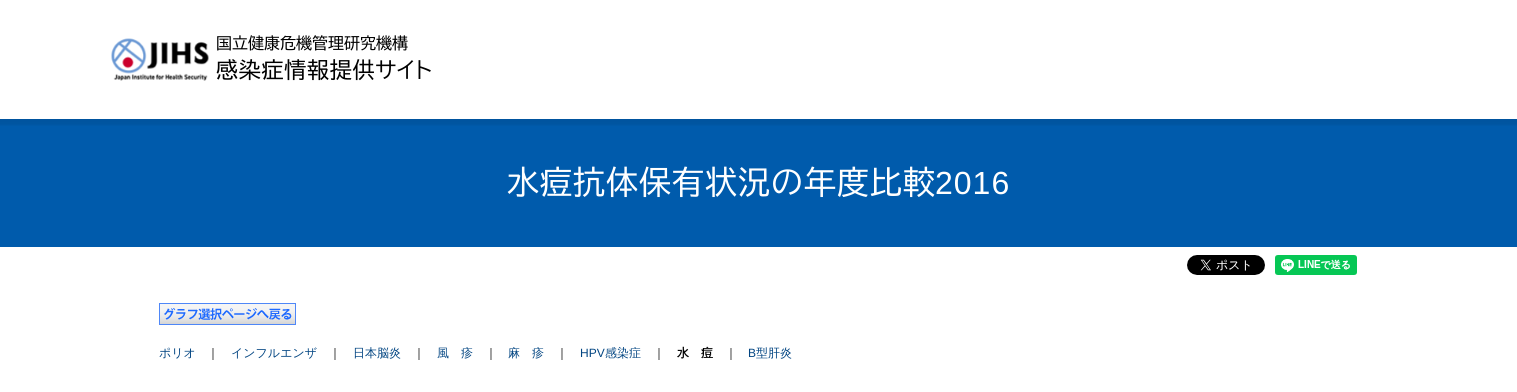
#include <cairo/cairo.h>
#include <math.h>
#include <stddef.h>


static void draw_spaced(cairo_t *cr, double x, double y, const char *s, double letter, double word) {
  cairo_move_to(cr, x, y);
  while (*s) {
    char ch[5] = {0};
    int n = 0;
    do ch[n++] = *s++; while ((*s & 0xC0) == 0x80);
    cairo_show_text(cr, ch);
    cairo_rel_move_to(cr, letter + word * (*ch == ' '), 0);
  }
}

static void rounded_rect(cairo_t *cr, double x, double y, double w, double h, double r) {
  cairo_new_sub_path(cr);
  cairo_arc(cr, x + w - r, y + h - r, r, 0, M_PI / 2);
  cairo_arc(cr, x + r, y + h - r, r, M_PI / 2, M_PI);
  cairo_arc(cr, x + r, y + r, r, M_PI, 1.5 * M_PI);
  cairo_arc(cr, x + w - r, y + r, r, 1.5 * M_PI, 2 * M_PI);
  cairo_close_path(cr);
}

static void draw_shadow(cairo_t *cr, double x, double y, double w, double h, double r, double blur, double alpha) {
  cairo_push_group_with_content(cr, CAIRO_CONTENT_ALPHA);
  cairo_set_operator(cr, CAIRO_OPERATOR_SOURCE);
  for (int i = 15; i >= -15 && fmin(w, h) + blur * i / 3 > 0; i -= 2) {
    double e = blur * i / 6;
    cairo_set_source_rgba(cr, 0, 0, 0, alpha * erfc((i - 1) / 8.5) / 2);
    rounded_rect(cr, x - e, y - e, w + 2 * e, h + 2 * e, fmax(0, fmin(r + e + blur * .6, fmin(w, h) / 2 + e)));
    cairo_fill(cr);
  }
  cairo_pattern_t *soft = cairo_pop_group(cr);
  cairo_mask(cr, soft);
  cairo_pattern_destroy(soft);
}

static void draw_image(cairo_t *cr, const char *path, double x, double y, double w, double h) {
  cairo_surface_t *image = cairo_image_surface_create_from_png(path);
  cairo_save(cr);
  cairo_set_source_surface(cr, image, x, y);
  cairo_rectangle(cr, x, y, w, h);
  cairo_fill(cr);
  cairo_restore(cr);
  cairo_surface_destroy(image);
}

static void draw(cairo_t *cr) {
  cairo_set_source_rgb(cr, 1, 1, 1);
  cairo_paint(cr);
  cairo_set_source_rgb(cr, 0, 91 / 255.0, 172 / 255.0);
  cairo_rectangle(cr, 0, 119, 1517, 128);
  cairo_fill(cr);
  cairo_save(cr);
  cairo_rectangle(cr, 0, 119, 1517, 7);
  cairo_clip(cr);
  cairo_set_source_rgb(cr, 0, 0, 0);
  draw_shadow(cr, -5, -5, 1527, 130, 0, 1.5, 0.08);
  cairo_restore(cr);
  draw_image(cr, "images/1.png", 111, 38, 98, 43);
  draw_image(cr, "images/2.png", 1187, 255, 78, 20);
  draw_image(cr, "images/3.png", 1275, 255, 82, 20);
  draw_image(cr, "images/4.png", 159, 303, 137, 22);
  cairo_select_font_face(cr, "BIZ UDPGothic", CAIRO_FONT_SLANT_NORMAL, CAIRO_FONT_WEIGHT_NORMAL);
  cairo_set_font_size(cr, 16);
  cairo_set_source_rgb(cr, 0, 0, 0);
  cairo_move_to(cr, 216, 49);
  cairo_show_text(cr, "国立健康危機管理研究機構");
  cairo_set_font_size(cr, 22);
  draw_spaced(cr, 216, 78, "感染症情報提供サイト", 0.75, 0);
  cairo_set_font_size(cr, 32);
  cairo_set_source_rgb(cr, 1, 1, 1);
  draw_spaced(cr, 507, 194, "水痘抗体保有状況の年度比較", 1, 0);
  cairo_select_font_face(cr, "Liberation Sans", CAIRO_FONT_SLANT_NORMAL, CAIRO_FONT_WEIGHT_NORMAL);
  draw_spaced(cr, 935, 194, "2016", 1, 0);
  cairo_select_font_face(cr, "WenQuanYi Zen Hei Medium", CAIRO_FONT_SLANT_NORMAL, CAIRO_FONT_WEIGHT_NORMAL);
  cairo_set_font_size(cr, 12);
  cairo_set_source_rgb(cr, 2 / 255.0, 69 / 255.0, 130 / 255.0);
  cairo_move_to(cr, 159, 357);
  cairo_show_text(cr, "ポリオ");
  cairo_set_source_rgb(cr, 0, 0, 0);
  cairo_move_to(cr, 207, 357);
  cairo_show_text(cr, "｜");
  cairo_set_source_rgb(cr, 2 / 255.0, 69 / 255.0, 130 / 255.0);
  cairo_move_to(cr, 231, 357);
  cairo_show_text(cr, "インフルエンザ");
  cairo_set_source_rgb(cr, 0, 0, 0);
  cairo_move_to(cr, 329, 357);
  cairo_show_text(cr, "｜");
  cairo_set_source_rgb(cr, 2 / 255.0, 69 / 255.0, 130 / 255.0);
  cairo_move_to(cr, 353, 357);
  cairo_show_text(cr, "日本脳炎");
  cairo_set_source_rgb(cr, 0, 0, 0);
  cairo_move_to(cr, 413, 357);
  cairo_show_text(cr, "｜");
  cairo_set_source_rgb(cr, 2 / 255.0, 69 / 255.0, 130 / 255.0);
  cairo_move_to(cr, 437, 357);
  cairo_show_text(cr, "風　疹");
  cairo_set_source_rgb(cr, 0, 0, 0);
  cairo_move_to(cr, 485, 357);
  cairo_show_text(cr, "｜");
  cairo_set_source_rgb(cr, 2 / 255.0, 69 / 255.0, 130 / 255.0);
  cairo_move_to(cr, 508, 357);
  cairo_show_text(cr, "麻　疹");
  cairo_set_source_rgb(cr, 0, 0, 0);
  cairo_move_to(cr, 556, 357);
  cairo_show_text(cr, "｜");
  cairo_select_font_face(cr, "Liberation Sans", CAIRO_FONT_SLANT_NORMAL, CAIRO_FONT_WEIGHT_NORMAL);
  cairo_set_source_rgb(cr, 2 / 255.0, 69 / 255.0, 130 / 255.0);
  cairo_move_to(cr, 580, 357);
  cairo_show_text(cr, "HPV");
  cairo_select_font_face(cr, "WenQuanYi Zen Hei Medium", CAIRO_FONT_SLANT_NORMAL, CAIRO_FONT_WEIGHT_NORMAL);
  cairo_move_to(cr, 605, 357);
  cairo_show_text(cr, "感染症");
  cairo_set_source_rgb(cr, 0, 0, 0);
  cairo_move_to(cr, 653, 357);
  cairo_show_text(cr, "｜");
  cairo_select_font_face(cr, "WenQuanYi Zen Hei", CAIRO_FONT_SLANT_NORMAL, CAIRO_FONT_WEIGHT_BOLD);
  cairo_move_to(cr, 677, 357);
  cairo_show_text(cr, "水　痘");
  cairo_select_font_face(cr, "WenQuanYi Zen Hei Medium", CAIRO_FONT_SLANT_NORMAL, CAIRO_FONT_WEIGHT_NORMAL);
  cairo_move_to(cr, 725, 357);
  cairo_show_text(cr, "｜");
  cairo_select_font_face(cr, "Liberation Sans", CAIRO_FONT_SLANT_NORMAL, CAIRO_FONT_WEIGHT_NORMAL);
  cairo_set_source_rgb(cr, 2 / 255.0, 69 / 255.0, 130 / 255.0);
  cairo_move_to(cr, 748, 357);
  cairo_show_text(cr, "B");
  cairo_select_font_face(cr, "WenQuanYi Zen Hei Medium", CAIRO_FONT_SLANT_NORMAL, CAIRO_FONT_WEIGHT_NORMAL);
  cairo_move_to(cr, 756, 357);
  cairo_show_text(cr, "型肝炎");
}

int main(void) {
  cairo_surface_t *surface = cairo_image_surface_create(CAIRO_FORMAT_RGB24, 1517, 392);
  cairo_t *cr = cairo_create(surface);
  cairo_font_options_t *options = cairo_font_options_create();
  cairo_font_options_set_hint_metrics(options, CAIRO_HINT_METRICS_OFF);
  cairo_font_options_set_hint_style(options, CAIRO_HINT_STYLE_NONE);
  cairo_set_font_options(cr, options);
  cairo_set_miter_limit(cr, 4);
  draw(cr);
  cairo_surface_write_to_png(surface, "out.png");
  cairo_font_options_destroy(options);
  cairo_destroy(cr);
  cairo_surface_destroy(surface);
  return 0;
}
